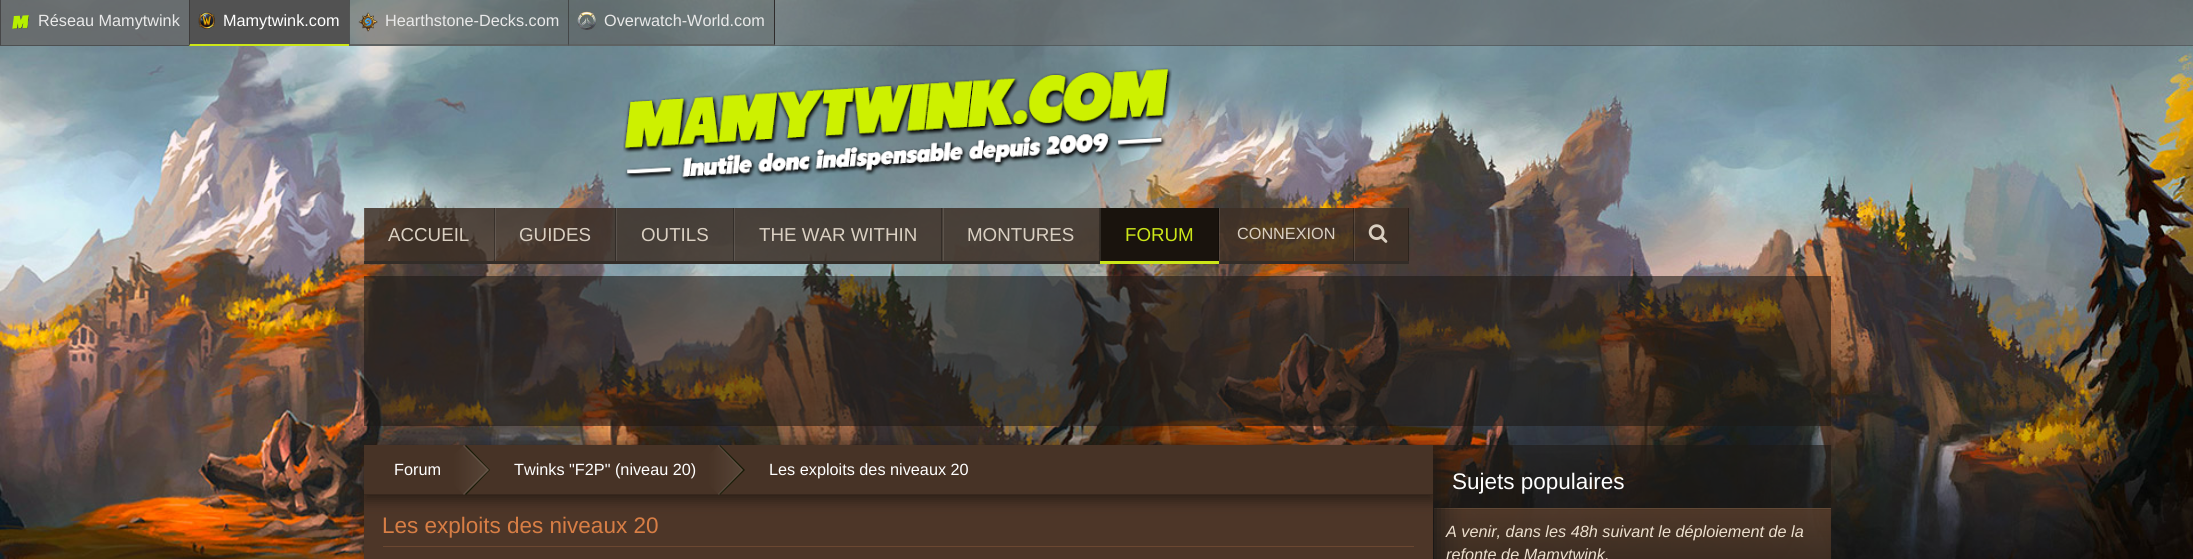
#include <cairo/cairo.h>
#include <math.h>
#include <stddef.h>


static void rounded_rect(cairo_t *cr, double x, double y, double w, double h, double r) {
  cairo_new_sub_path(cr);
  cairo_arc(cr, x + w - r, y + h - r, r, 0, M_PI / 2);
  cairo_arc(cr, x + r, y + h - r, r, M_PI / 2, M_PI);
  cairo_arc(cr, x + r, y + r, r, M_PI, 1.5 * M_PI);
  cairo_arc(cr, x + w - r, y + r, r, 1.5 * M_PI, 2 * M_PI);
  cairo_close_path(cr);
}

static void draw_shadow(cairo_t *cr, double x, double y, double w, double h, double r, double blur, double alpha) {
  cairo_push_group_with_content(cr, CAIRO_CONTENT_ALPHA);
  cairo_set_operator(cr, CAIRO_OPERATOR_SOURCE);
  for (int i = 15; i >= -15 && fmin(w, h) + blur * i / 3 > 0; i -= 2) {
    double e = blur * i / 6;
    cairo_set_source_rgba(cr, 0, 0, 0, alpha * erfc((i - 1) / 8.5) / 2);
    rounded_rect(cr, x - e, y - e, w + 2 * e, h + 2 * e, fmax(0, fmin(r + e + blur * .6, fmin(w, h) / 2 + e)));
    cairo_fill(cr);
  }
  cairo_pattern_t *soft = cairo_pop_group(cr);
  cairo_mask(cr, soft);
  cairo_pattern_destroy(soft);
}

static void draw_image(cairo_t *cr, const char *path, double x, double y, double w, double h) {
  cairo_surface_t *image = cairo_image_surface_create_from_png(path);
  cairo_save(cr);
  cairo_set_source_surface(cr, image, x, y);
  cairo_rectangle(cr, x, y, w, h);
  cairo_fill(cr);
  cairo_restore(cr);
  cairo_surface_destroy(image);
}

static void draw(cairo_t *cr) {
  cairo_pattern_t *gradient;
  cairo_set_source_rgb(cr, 1, 1, 1);
  cairo_paint(cr);
  draw_image(cr, "images/1.png", 0, 0, 2193, 559);
  cairo_set_source_rgba(cr, 103 / 255.0, 103 / 255.0, 103 / 255.0, 0.56);
  cairo_rectangle(cr, 0, 0, 2193, 46);
  cairo_fill(cr);
  cairo_set_source_rgba(cr, 0, 0, 0, 0.2);
  cairo_rectangle(cr, 0, 45, 2193, 1);
  cairo_fill(cr);
  cairo_set_source_rgba(cr, 103 / 255.0, 103 / 255.0, 103 / 255.0, 0.56);
  cairo_rectangle(cr, 0, 0, 189, 46);
  cairo_fill(cr);
  cairo_set_source_rgb(cr, 77 / 255.0, 80 / 255.0, 81 / 255.0);
  cairo_new_path(cr);
  cairo_move_to(cr, 189, 46);
  cairo_line_to(cr, 0, 46);
  cairo_line_to(cr, 1, 45);
  cairo_line_to(cr, 189, 45);
  cairo_close_path(cr);
  cairo_fill(cr);
  cairo_set_source_rgba(cr, 47 / 255.0, 43 / 255.0, 43 / 255.0, 0.57);
  cairo_new_path(cr);
  cairo_move_to(cr, 0, 46);
  cairo_line_to(cr, 0, 0);
  cairo_line_to(cr, 1, 0);
  cairo_line_to(cr, 1, 45);
  cairo_close_path(cr);
  cairo_fill(cr);
  draw_image(cr, "images/2.png", 12, 15, 17, 14);
  cairo_set_source_rgb(cr, 82 / 255.0, 82 / 255.0, 82 / 255.0);
  cairo_rectangle(cr, 189, 0, 160, 46);
  cairo_fill(cr);
  cairo_set_source_rgb(cr, 204 / 255.0, 230 / 255.0, 24 / 255.0);
  cairo_new_path(cr);
  cairo_move_to(cr, 349, 46);
  cairo_line_to(cr, 189, 46);
  cairo_line_to(cr, 190, 44);
  cairo_line_to(cr, 349, 44);
  cairo_close_path(cr);
  cairo_fill(cr);
  cairo_set_source_rgba(cr, 47 / 255.0, 43 / 255.0, 43 / 255.0, 0.57);
  cairo_new_path(cr);
  cairo_move_to(cr, 189, 46);
  cairo_line_to(cr, 189, 0);
  cairo_line_to(cr, 190, 0);
  cairo_line_to(cr, 190, 44);
  cairo_close_path(cr);
  cairo_fill(cr);
  draw_image(cr, "images/3.png", 198, 12, 17, 17);
  cairo_set_source_rgba(cr, 68 / 255.0, 65 / 255.0, 62 / 255.0, 0.16);
  cairo_rectangle(cr, 349, 0, 219, 46);
  cairo_fill(cr);
  cairo_set_source_rgb(cr, 94 / 255.0, 98 / 255.0, 98 / 255.0);
  cairo_new_path(cr);
  cairo_move_to(cr, 568, 46);
  cairo_line_to(cr, 349, 46);
  cairo_line_to(cr, 350, 44);
  cairo_line_to(cr, 568, 44);
  cairo_close_path(cr);
  cairo_fill(cr);
  cairo_set_source_rgba(cr, 47 / 255.0, 43 / 255.0, 43 / 255.0, 0.57);
  cairo_new_path(cr);
  cairo_move_to(cr, 349, 46);
  cairo_line_to(cr, 349, 0);
  cairo_line_to(cr, 350, 0);
  cairo_line_to(cr, 350, 44);
  cairo_close_path(cr);
  cairo_fill(cr);
  draw_image(cr, "images/4.png", 358, 12, 20, 20);
  cairo_set_source_rgba(cr, 68 / 255.0, 65 / 255.0, 62 / 255.0, 0.16);
  cairo_rectangle(cr, 568, 0, 207, 46);
  cairo_fill(cr);
  cairo_set_source_rgb(cr, 47 / 255.0, 43 / 255.0, 43 / 255.0);
  cairo_new_path(cr);
  cairo_move_to(cr, 775, 0);
  cairo_line_to(cr, 775, 46);
  cairo_line_to(cr, 774, 44);
  cairo_line_to(cr, 774, 0);
  cairo_close_path(cr);
  cairo_fill(cr);
  cairo_set_source_rgb(cr, 94 / 255.0, 98 / 255.0, 98 / 255.0);
  cairo_new_path(cr);
  cairo_move_to(cr, 775, 46);
  cairo_line_to(cr, 568, 46);
  cairo_line_to(cr, 569, 44);
  cairo_line_to(cr, 774, 44);
  cairo_close_path(cr);
  cairo_fill(cr);
  cairo_set_source_rgba(cr, 47 / 255.0, 43 / 255.0, 43 / 255.0, 0.57);
  cairo_new_path(cr);
  cairo_move_to(cr, 568, 46);
  cairo_line_to(cr, 568, 0);
  cairo_line_to(cr, 569, 0);
  cairo_line_to(cr, 569, 44);
  cairo_close_path(cr);
  cairo_fill(cr);
  draw_image(cr, "images/5.png", 577, 11, 20, 19);
  draw_image(cr, "images/6.png", 623, 67, 549, 115);
  cairo_set_source_rgba(cr, 62 / 255.0, 48 / 255.0, 38 / 255.0, 0.85);
  cairo_rectangle(cr, 364, 208, 131, 53);
  cairo_fill(cr);
  cairo_set_source_rgba(cr, 0, 0, 0, 0.3);
  cairo_rectangle(cr, 494, 208, 1, 53);
  cairo_fill(cr);
  cairo_set_source_rgba(cr, 1, 1, 1, 0.1);
  cairo_rectangle(cr, 364, 208, 1, 53);
  cairo_fill(cr);
  cairo_set_source_rgb(cr, 51 / 255.0, 45 / 255.0, 40 / 255.0);
  cairo_rectangle(cr, 364, 261, 736, 3);
  cairo_fill(cr);
  cairo_set_source_rgba(cr, 62 / 255.0, 48 / 255.0, 38 / 255.0, 0.85);
  cairo_rectangle(cr, 495, 208, 120, 53);
  cairo_fill(cr);
  cairo_set_source_rgb(cr, 50 / 255.0, 45 / 255.0, 40 / 255.0);
  cairo_rectangle(cr, 615, 208, 1, 53);
  cairo_fill(cr);
  cairo_set_source_rgba(cr, 1, 1, 1, 0.1);
  cairo_rectangle(cr, 495, 208, 1, 53);
  cairo_fill(cr);
  cairo_set_source_rgba(cr, 62 / 255.0, 48 / 255.0, 38 / 255.0, 0.85);
  cairo_rectangle(cr, 617, 208, 117, 53);
  cairo_fill(cr);
  cairo_set_source_rgba(cr, 0, 0, 0, 0.3);
  cairo_rectangle(cr, 733, 208, 1, 53);
  cairo_fill(cr);
  cairo_set_source_rgb(cr, 90 / 255.0, 83 / 255.0, 77 / 255.0);
  cairo_rectangle(cr, 616, 208, 1, 53);
  cairo_fill(cr);
  cairo_set_source_rgba(cr, 62 / 255.0, 48 / 255.0, 38 / 255.0, 0.85);
  cairo_rectangle(cr, 734, 208, 209, 53);
  cairo_fill(cr);
  cairo_set_source_rgb(cr, 51 / 255.0, 45 / 255.0, 40 / 255.0);
  cairo_rectangle(cr, 941, 208, 1, 53);
  cairo_fill(cr);
  cairo_set_source_rgba(cr, 1, 1, 1, 0.1);
  cairo_rectangle(cr, 734, 208, 1, 53);
  cairo_fill(cr);
  cairo_set_source_rgba(cr, 62 / 255.0, 48 / 255.0, 38 / 255.0, 0.85);
  cairo_rectangle(cr, 944, 208, 156, 53);
  cairo_fill(cr);
  cairo_set_source_rgba(cr, 0, 0, 0, 0.3);
  cairo_rectangle(cr, 1099, 208, 1, 53);
  cairo_fill(cr);
  cairo_set_source_rgb(cr, 92 / 255.0, 84 / 255.0, 76 / 255.0);
  cairo_rectangle(cr, 943, 208, 1, 53);
  cairo_fill(cr);
  cairo_set_source_rgb(cr, 25 / 255.0, 19 / 255.0, 13 / 255.0);
  cairo_rectangle(cr, 1101, 208, 117, 53);
  cairo_fill(cr);
  cairo_set_source_rgb(cr, 18 / 255.0, 13 / 255.0, 9 / 255.0);
  cairo_rectangle(cr, 1218, 208, 1, 53);
  cairo_fill(cr);
  cairo_set_source_rgb(cr, 48 / 255.0, 43 / 255.0, 37 / 255.0);
  cairo_rectangle(cr, 1100, 208, 1, 53);
  cairo_fill(cr);
  cairo_set_source_rgb(cr, 204 / 255.0, 230 / 255.0, 24 / 255.0);
  cairo_rectangle(cr, 1100, 261, 119, 3);
  cairo_fill(cr);
  cairo_set_source_rgba(cr, 62 / 255.0, 48 / 255.0, 38 / 255.0, 0.85);
  cairo_rectangle(cr, 1354, 208, 54, 53);
  cairo_fill(cr);
  cairo_set_source_rgb(cr, 44 / 255.0, 35 / 255.0, 28 / 255.0);
  cairo_rectangle(cr, 1408, 208, 1, 53);
  cairo_fill(cr);
  cairo_set_source_rgba(cr, 1, 1, 1, 0.1);
  cairo_rectangle(cr, 1354, 208, 1, 53);
  cairo_fill(cr);
  cairo_set_source_rgb(cr, 51 / 255.0, 45 / 255.0, 40 / 255.0);
  cairo_rectangle(cr, 1219, 261, 190, 3);
  cairo_fill(cr);
  draw_image(cr, "images/7.png", 1368, 224, 20, 19);
  cairo_set_source_rgba(cr, 62 / 255.0, 48 / 255.0, 38 / 255.0, 0.85);
  cairo_rectangle(cr, 1219, 208, 135, 53);
  cairo_fill(cr);
  cairo_set_source_rgba(cr, 0, 0, 0, 0.3);
  cairo_rectangle(cr, 1353, 208, 1, 53);
  cairo_fill(cr);
  cairo_set_source_rgba(cr, 1, 1, 1, 0.1);
  cairo_rectangle(cr, 1219, 208, 1, 53);
  cairo_fill(cr);
  cairo_set_source_rgba(cr, 30 / 255.0, 26 / 255.0, 23 / 255.0, 0.59);
  cairo_rectangle(cr, 364, 276, 1467, 150);
  cairo_fill(cr);
  cairo_rectangle(cr, 1433, 445, 398, 114);
  cairo_fill(cr);
  cairo_set_source_rgba(cr, 97 / 255.0, 67 / 255.0, 47 / 255.0, 0.47);
  cairo_rectangle(cr, 1434, 509, 397, 50);
  cairo_fill(cr);
  gradient = cairo_pattern_create_linear(1434, 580, 1434, 509);
  cairo_pattern_add_color_stop_rgba(gradient, 0, 49 / 255.0, 39 / 255.0, 29 / 255.0, 0.47);
  cairo_pattern_add_color_stop_rgba(gradient, 1, 97 / 255.0, 67 / 255.0, 47 / 255.0, 0.52);
  cairo_set_source(cr, gradient);
  cairo_pattern_destroy(gradient);
  cairo_rectangle(cr, 1434, 509, 397, 50);
  cairo_fill(cr);
  cairo_set_source_rgba(cr, 0, 0, 0, 0.05);
  cairo_rectangle(cr, 1434, 509, 397, 1);
  cairo_fill(cr);
  cairo_set_source_rgb(cr, 97 / 255.0, 73 / 255.0, 54 / 255.0);
  cairo_rectangle(cr, 1434, 508, 397, 1);
  cairo_fill(cr);
  cairo_set_source_rgb(cr, 27 / 255.0, 25 / 255.0, 23 / 255.0);
  draw_shadow(cr, 370, 451, 1069, 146, 0, 12.5, 1);
  cairo_set_source_rgb(cr, 77 / 255.0, 54 / 255.0, 40 / 255.0);
  cairo_rectangle(cr, 364, 496, 1069, 63);
  cairo_fill(cr);
  cairo_set_source_rgb(cr, 73 / 255.0, 51 / 255.0, 38 / 255.0);
  cairo_rectangle(cr, 364, 495, 1069, 1);
  cairo_fill(cr);
  cairo_set_source_rgb(cr, 37 / 255.0, 27 / 255.0, 20 / 255.0);
  draw_shadow(cr, 364, 451, 1069, 50, 0, 6, 0.8);
  cairo_set_source_rgb(cr, 71 / 255.0, 51 / 255.0, 38 / 255.0);
  cairo_rectangle(cr, 364, 445, 1069, 49);
  cairo_fill(cr);
  cairo_set_source_rgb(cr, 56 / 255.0, 40 / 255.0, 30 / 255.0);
  cairo_rectangle(cr, 364, 494, 1069, 1);
  cairo_fill(cr);
  cairo_set_source_rgb(cr, 24 / 255.0, 27 / 255.0, 7 / 255.0);
  cairo_new_path(cr);
  cairo_move_to(cr, 465, 446);
  cairo_line_to(cr, 489, 470);
  cairo_line_to(cr, 465, 494);
  cairo_line_to(cr, 466, 495);
  cairo_line_to(cr, 490, 470);
  cairo_line_to(cr, 466, 445);
  cairo_close_path(cr);
  cairo_fill(cr);
  cairo_new_path(cr);
  cairo_move_to(cr, 719, 446);
  cairo_line_to(cr, 743, 470);
  cairo_line_to(cr, 719, 494);
  cairo_line_to(cr, 720, 495);
  cairo_line_to(cr, 745, 470);
  cairo_line_to(cr, 720, 445);
  cairo_close_path(cr);
  cairo_fill(cr);
  cairo_set_source_rgb(cr, 107 / 255.0, 71 / 255.0, 49 / 255.0);
  cairo_rectangle(cr, 383, 546, 1031, 1);
  cairo_fill(cr);
  cairo_select_font_face(cr, "Liberation Sans", CAIRO_FONT_SLANT_NORMAL, CAIRO_FONT_WEIGHT_NORMAL);
  cairo_set_font_size(cr, 16.25);
  cairo_set_source_rgb(cr, 233 / 255.0, 233 / 255.0, 233 / 255.0);
  cairo_move_to(cr, 38, 26);
  cairo_show_text(cr, "Réseau Mamytwink");
  cairo_set_source_rgb(cr, 1, 1, 1);
  cairo_move_to(cr, 223, 26);
  cairo_show_text(cr, "Mamytwink.com");
  cairo_set_source_rgb(cr, 233 / 255.0, 233 / 255.0, 233 / 255.0);
  cairo_move_to(cr, 385, 26);
  cairo_show_text(cr, "Hearthstone-Decks.com");
  cairo_move_to(cr, 604, 26);
  cairo_show_text(cr, "Overwatch-World.com");
  cairo_set_font_size(cr, 18.75);
  cairo_set_source_rgb(cr, 218 / 255.0, 208 / 255.0, 194 / 255.0);
  cairo_move_to(cr, 388, 241);
  cairo_show_text(cr, "ACCUEIL");
  cairo_move_to(cr, 519, 241);
  cairo_show_text(cr, "GUIDES");
  cairo_move_to(cr, 641, 241);
  cairo_show_text(cr, "OUTILS");
  cairo_move_to(cr, 759, 241);
  cairo_show_text(cr, "THE WAR WITHIN");
  cairo_move_to(cr, 967, 241);
  cairo_show_text(cr, "MONTURES");
  cairo_set_source_rgb(cr, 204 / 255.0, 230 / 255.0, 24 / 255.0);
  cairo_move_to(cr, 1125, 241);
  cairo_show_text(cr, "FORUM");
  cairo_set_font_size(cr, 16.25);
  cairo_set_source_rgb(cr, 218 / 255.0, 208 / 255.0, 194 / 255.0);
  cairo_move_to(cr, 1237, 239);
  cairo_show_text(cr, "CONNEXION");
  cairo_set_source_rgb(cr, 1, 1, 1);
  cairo_move_to(cr, 394, 475);
  cairo_show_text(cr, "Forum");
  gradient = cairo_pattern_create_linear(439, 470, 573, 470);
  cairo_pattern_add_color_stop_rgba(gradient, 0, 51 / 255.0, 53 / 255.0, 53 / 255.0, 0);
  cairo_pattern_add_color_stop_rgba(gradient, 0.11, 218 / 255.0, 208 / 255.0, 194 / 255.0, 0);
  cairo_pattern_add_color_stop_rgba(gradient, 1, 218 / 255.0, 208 / 255.0, 194 / 255.0, 0.39);
  cairo_set_source(cr, gradient);
  cairo_pattern_destroy(gradient);
  cairo_new_path(cr);
  cairo_move_to(cr, 439, 470);
  cairo_line_to(cr, 464, 445);
  cairo_line_to(cr, 489, 470);
  cairo_line_to(cr, 464, 495);
  cairo_close_path(cr);
  cairo_fill(cr);
  cairo_set_source_rgba(cr, 1, 1, 1, 0.1);
  cairo_new_path(cr);
  cairo_move_to(cr, 463, 494);
  cairo_line_to(cr, 464, 495);
  cairo_line_to(cr, 489, 470);
  cairo_line_to(cr, 464, 445);
  cairo_line_to(cr, 463, 446);
  cairo_line_to(cr, 487, 470);
  cairo_close_path(cr);
  cairo_fill(cr);
  cairo_set_source_rgb(cr, 1, 1, 1);
  cairo_move_to(cr, 514, 475);
  cairo_show_text(cr, "Twinks \"F2P\" (niveau 20)");
  gradient = cairo_pattern_create_linear(694, 470, 828, 470);
  cairo_pattern_add_color_stop_rgba(gradient, 0, 51 / 255.0, 53 / 255.0, 53 / 255.0, 0);
  cairo_pattern_add_color_stop_rgba(gradient, 0.11, 218 / 255.0, 208 / 255.0, 194 / 255.0, 0);
  cairo_pattern_add_color_stop_rgba(gradient, 1, 218 / 255.0, 208 / 255.0, 194 / 255.0, 0.39);
  cairo_set_source(cr, gradient);
  cairo_pattern_destroy(gradient);
  cairo_new_path(cr);
  cairo_move_to(cr, 694, 470);
  cairo_line_to(cr, 719, 445);
  cairo_line_to(cr, 743, 470);
  cairo_line_to(cr, 719, 495);
  cairo_close_path(cr);
  cairo_fill(cr);
  cairo_set_source_rgba(cr, 1, 1, 1, 0.1);
  cairo_new_path(cr);
  cairo_move_to(cr, 718, 494);
  cairo_line_to(cr, 719, 495);
  cairo_line_to(cr, 743, 470);
  cairo_line_to(cr, 719, 445);
  cairo_line_to(cr, 718, 446);
  cairo_line_to(cr, 742, 470);
  cairo_close_path(cr);
  cairo_fill(cr);
  cairo_set_source_rgb(cr, 1, 1, 1);
  cairo_move_to(cr, 769, 475);
  cairo_show_text(cr, "Les exploits des niveaux 20");
  cairo_set_font_size(cr, 22.5);
  cairo_set_source_rgb(cr, 216 / 255.0, 126 / 255.0, 69 / 255.0);
  cairo_move_to(cr, 382, 533);
  cairo_show_text(cr, "Les exploits des niveaux 20");
  cairo_set_source_rgb(cr, 1, 1, 1);
  cairo_move_to(cr, 1452, 489);
  cairo_show_text(cr, "Sujets populaires");
  cairo_select_font_face(cr, "Liberation Sans", CAIRO_FONT_SLANT_ITALIC, CAIRO_FONT_WEIGHT_NORMAL);
  cairo_set_font_size(cr, 16.25);
  cairo_set_source_rgb(cr, 236 / 255.0, 223 / 255.0, 206 / 255.0);
  cairo_move_to(cr, 1446, 537);
  cairo_show_text(cr, "A venir, dans les 48h suivant le déploiement de la");
  cairo_move_to(cr, 1446, 560);
  cairo_show_text(cr, "refonte de Mamytwink.");
}

int main(void) {
  cairo_surface_t *surface = cairo_image_surface_create(CAIRO_FORMAT_RGB24, 2193, 559);
  cairo_t *cr = cairo_create(surface);
  cairo_font_options_t *options = cairo_font_options_create();
  cairo_font_options_set_hint_metrics(options, CAIRO_HINT_METRICS_OFF);
  cairo_font_options_set_hint_style(options, CAIRO_HINT_STYLE_NONE);
  cairo_set_font_options(cr, options);
  cairo_set_miter_limit(cr, 4);
  draw(cr);
  cairo_surface_write_to_png(surface, "out.png");
  cairo_font_options_destroy(options);
  cairo_destroy(cr);
  cairo_surface_destroy(surface);
  return 0;
}
